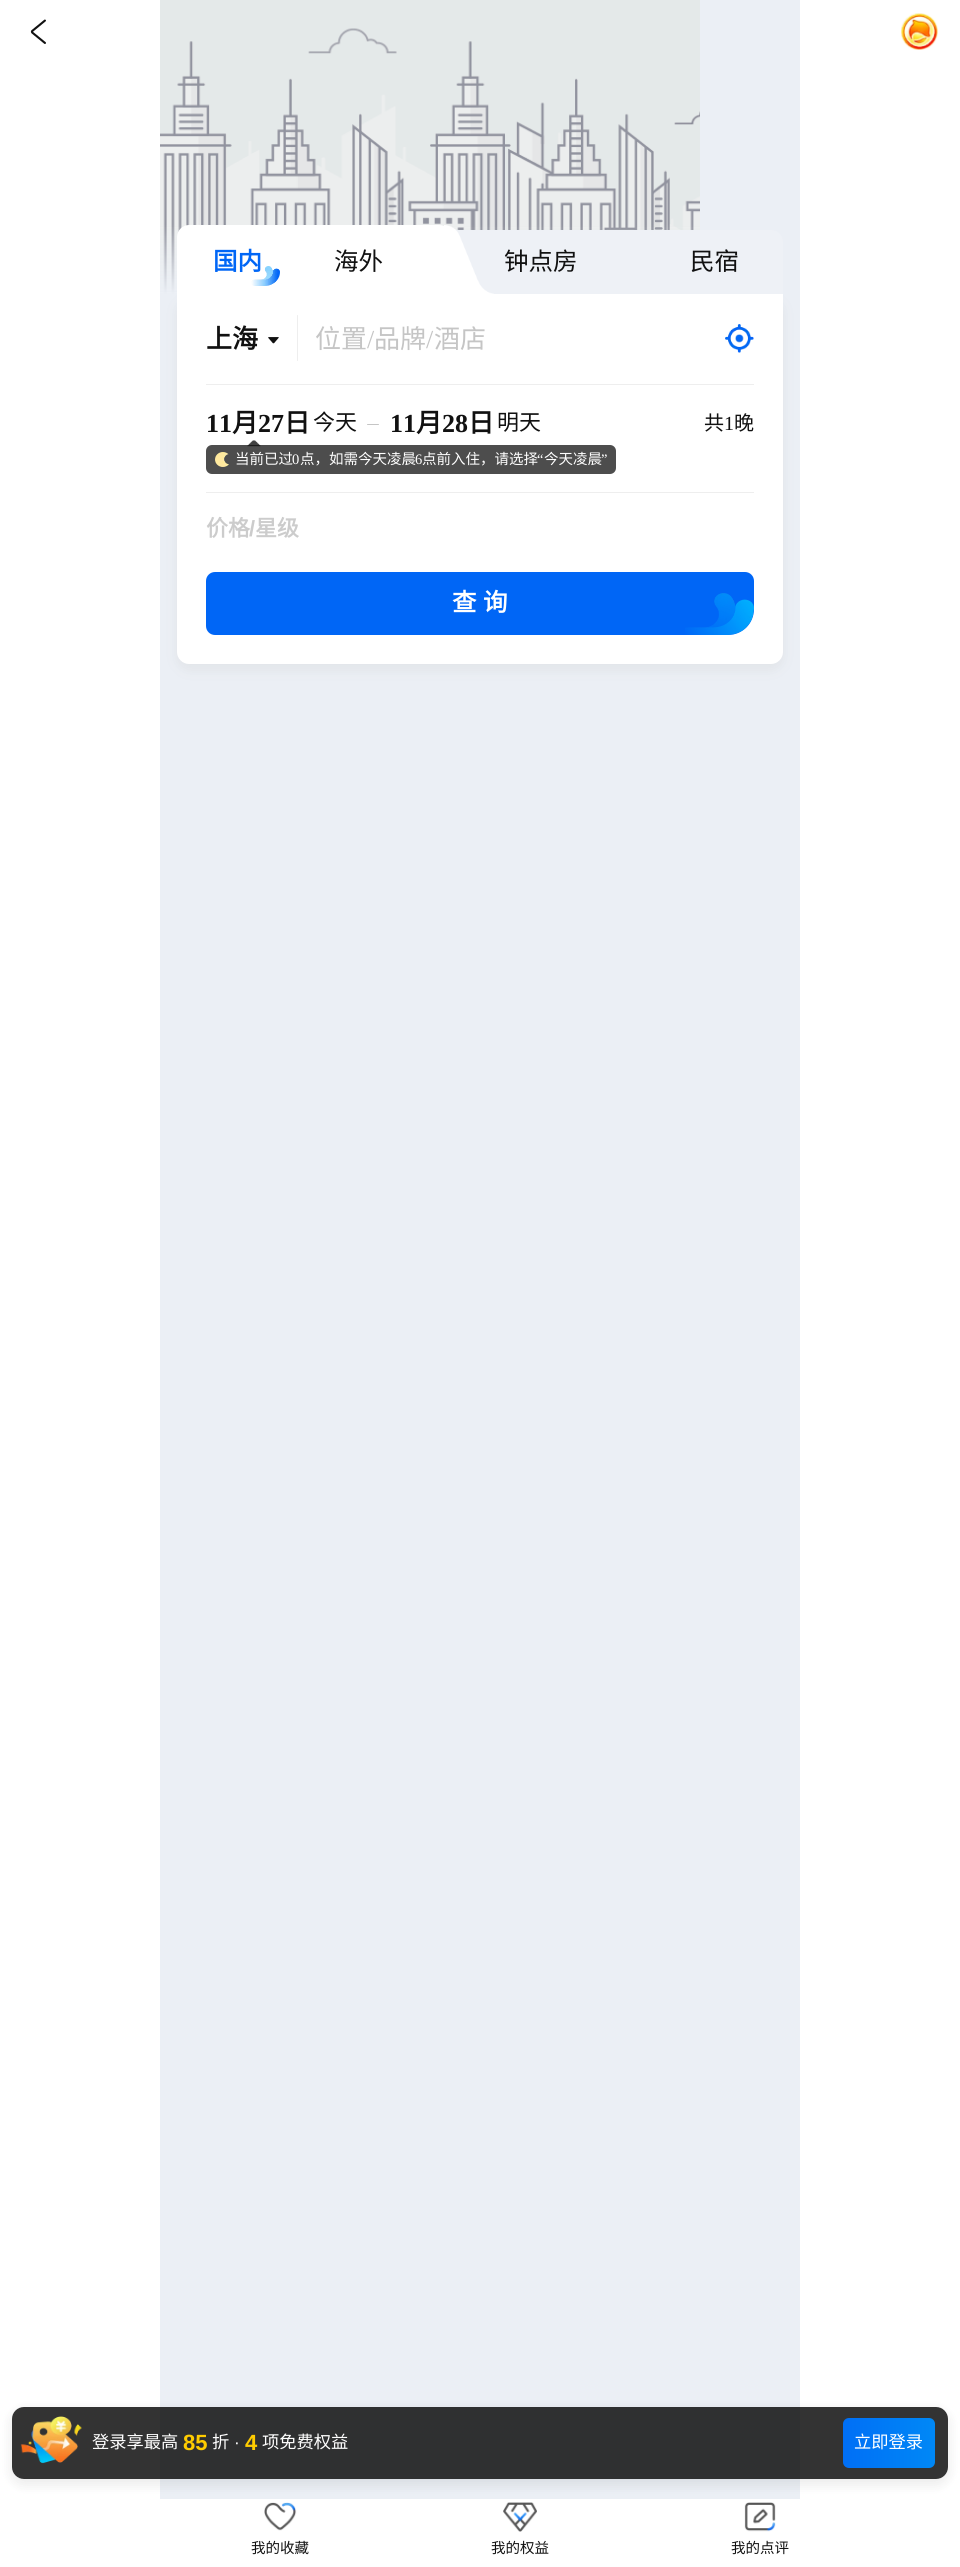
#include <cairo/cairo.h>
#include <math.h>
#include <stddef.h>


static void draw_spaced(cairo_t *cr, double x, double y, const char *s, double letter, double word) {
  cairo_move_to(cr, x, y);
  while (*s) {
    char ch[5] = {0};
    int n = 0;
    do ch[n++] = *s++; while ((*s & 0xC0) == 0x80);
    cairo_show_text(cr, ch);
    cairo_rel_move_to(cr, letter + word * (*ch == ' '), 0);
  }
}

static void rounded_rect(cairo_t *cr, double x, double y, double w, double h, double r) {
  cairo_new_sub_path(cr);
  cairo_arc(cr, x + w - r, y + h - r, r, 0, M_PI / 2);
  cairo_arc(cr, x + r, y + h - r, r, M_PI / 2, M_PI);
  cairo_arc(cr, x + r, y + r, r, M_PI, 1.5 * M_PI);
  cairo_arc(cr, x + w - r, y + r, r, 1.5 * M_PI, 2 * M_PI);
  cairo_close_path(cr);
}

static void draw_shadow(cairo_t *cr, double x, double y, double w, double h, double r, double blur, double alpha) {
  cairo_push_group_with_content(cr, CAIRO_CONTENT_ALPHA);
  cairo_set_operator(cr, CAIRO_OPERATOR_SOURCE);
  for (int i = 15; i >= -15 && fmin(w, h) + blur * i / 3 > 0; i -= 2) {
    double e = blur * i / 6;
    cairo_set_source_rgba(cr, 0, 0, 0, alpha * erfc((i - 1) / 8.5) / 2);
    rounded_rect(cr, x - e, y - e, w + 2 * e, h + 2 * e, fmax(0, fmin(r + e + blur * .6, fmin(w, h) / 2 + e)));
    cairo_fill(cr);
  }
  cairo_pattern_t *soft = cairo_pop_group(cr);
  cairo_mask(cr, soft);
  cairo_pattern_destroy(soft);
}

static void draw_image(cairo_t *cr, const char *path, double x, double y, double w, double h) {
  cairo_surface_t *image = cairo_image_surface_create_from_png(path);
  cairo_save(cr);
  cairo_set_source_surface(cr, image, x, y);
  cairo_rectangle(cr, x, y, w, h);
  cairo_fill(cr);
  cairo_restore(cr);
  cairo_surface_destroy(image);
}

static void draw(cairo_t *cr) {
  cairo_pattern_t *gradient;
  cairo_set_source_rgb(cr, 1, 1, 1);
  cairo_paint(cr);
  draw_image(cr, "images/1.png", 30, 19, 16, 25);
  draw_image(cr, "images/2.png", 901, 13, 37, 37);
  cairo_set_source_rgb(cr, 235 / 255.0, 239 / 255.0, 245 / 255.0);
  cairo_rectangle(cr, 160, 0, 640, 2499);
  cairo_fill(cr);
  cairo_set_source_rgb(cr, 204 / 255.0, 204 / 255.0, 204 / 255.0);
  draw_shadow(cr, 177, 300, 606, 370, 12, 6, 0.3);
  draw_image(cr, "images/3.png", 160, 0, 540, 294);
  cairo_set_source_rgb(cr, 238 / 255.0, 241 / 255.0, 246 / 255.0);
  cairo_new_path(cr);
  cairo_move_to(cr, 189, 230);
  cairo_line_to(cr, 771, 230);
  cairo_curve_to(cr, 777.5, 230, 783, 235.5, 783, 242);
  cairo_line_to(cr, 783, 294);
  cairo_line_to(cr, 177, 294);
  cairo_line_to(cr, 177, 242);
  cairo_curve_to(cr, 177, 235.5, 182.5, 230, 189, 230);
  cairo_close_path(cr);
  cairo_fill(cr);
  cairo_set_source_rgb(cr, 1, 1, 1);
  cairo_new_path(cr);
  cairo_move_to(cr, 189, 225);
  cairo_line_to(cr, 439, 225);
  cairo_curve_to(cr, 445.5, 225, 451, 230.5, 451, 237);
  cairo_line_to(cr, 451, 294);
  cairo_line_to(cr, 177, 294);
  cairo_line_to(cr, 177, 237);
  cairo_curve_to(cr, 177, 230.5, 182.5, 225, 189, 225);
  cairo_close_path(cr);
  cairo_fill(cr);
  draw_image(cr, "images/4.png", 444, 225, 50, 69);
  cairo_new_path(cr);
  cairo_move_to(cr, 177, 294);
  cairo_line_to(cr, 783, 294);
  cairo_line_to(cr, 783, 652);
  cairo_curve_to(cr, 783, 658.5, 777.5, 664, 771, 664);
  cairo_line_to(cr, 189, 664);
  cairo_curve_to(cr, 182.5, 664, 177, 658.5, 177, 652);
  cairo_close_path(cr);
  cairo_fill(cr);
  cairo_set_source_rgb(cr, 238 / 255.0, 238 / 255.0, 238 / 255.0);
  cairo_rectangle(cr, 206, 384, 548, 1);
  cairo_fill(cr);
  draw_image(cr, "images/6.png", 268, 337, 11, 7);
  rounded_rect(cr, 297, 315, 1, 46, 0.5);
  cairo_fill(cr);
  draw_image(cr, "images/7.png", 725, 324, 29, 29);
  cairo_set_source_rgb(cr, 197 / 255.0, 197 / 255.0, 197 / 255.0);
  rounded_rect(cr, 367, 424, 12, 1, 0.5);
  cairo_fill(cr);
  cairo_set_source_rgb(cr, 77 / 255.0, 77 / 255.0, 77 / 255.0);
  rounded_rect(cr, 206, 445, 410, 29, 6);
  cairo_fill(cr);
  draw_image(cr, "images/8.png", 247, 440, 14, 7);
  draw_image(cr, "images/9.png", 215, 452, 14, 15);
  cairo_set_source_rgb(cr, 238 / 255.0, 238 / 255.0, 238 / 255.0);
  cairo_rectangle(cr, 206, 492, 548, 1);
  cairo_fill(cr);
  cairo_set_source_rgb(cr, 0, 102 / 255.0, 246 / 255.0);
  cairo_new_path(cr);
  cairo_move_to(cr, 215, 572);
  cairo_line_to(cr, 745, 572);
  cairo_curve_to(cr, 750, 572, 754, 576, 754, 581);
  cairo_line_to(cr, 754, 609);
  cairo_curve_to(cr, 754, 623.5, 742.5, 635, 728, 635);
  cairo_line_to(cr, 215, 635);
  cairo_curve_to(cr, 210, 635, 206, 631, 206, 626);
  cairo_line_to(cr, 206, 581);
  cairo_curve_to(cr, 206, 576, 210, 572, 215, 572);
  cairo_close_path(cr);
  cairo_fill(cr);
  draw_image(cr, "images/10.png", 685, 593, 69, 42);
  cairo_save(cr);
  cairo_set_fill_rule(cr, CAIRO_FILL_RULE_EVEN_ODD);
  cairo_new_path(cr);
  cairo_move_to(cr, 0, 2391);
  cairo_line_to(cr, 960, 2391);
  cairo_line_to(cr, 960, 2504);
  cairo_line_to(cr, 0, 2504);
  cairo_close_path(cr);
  cairo_move_to(cr, 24, 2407);
  cairo_line_to(cr, 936, 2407);
  cairo_curve_to(cr, 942.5, 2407, 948, 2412.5, 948, 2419);
  cairo_line_to(cr, 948, 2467);
  cairo_curve_to(cr, 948, 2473.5, 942.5, 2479, 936, 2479);
  cairo_line_to(cr, 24, 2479);
  cairo_curve_to(cr, 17.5, 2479, 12, 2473.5, 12, 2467);
  cairo_line_to(cr, 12, 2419);
  cairo_curve_to(cr, 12, 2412.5, 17.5, 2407, 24, 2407);
  cairo_close_path(cr);
  cairo_clip(cr);
  cairo_set_source_rgb(cr, 0, 0, 0);
  draw_shadow(cr, 11, 2410, 938, 75, 13, 6, 0.08);
  cairo_restore(cr);
  draw_image(cr, "images/11.png", 264, 2502, 33, 29);
  draw_image(cr, "images/12.png", 503, 2502, 34, 30);
  draw_image(cr, "images/13.png", 744, 2502, 32, 30);
  cairo_set_source_rgba(cr, 0, 0, 0, 0.8);
  rounded_rect(cr, 12, 2407, 936, 72, 12);
  cairo_fill(cr);
  draw_image(cr, "images/14.png", 20, 2416, 62, 48);
  gradient = cairo_pattern_create_linear(935, 2443, 843, 2443);
  cairo_pattern_add_color_stop_rgba(gradient, 0, 0, 136 / 255.0, 246 / 255.0, 1);
  cairo_pattern_add_color_stop_rgba(gradient, 1, 0, 111 / 255.0, 246 / 255.0, 1);
  cairo_set_source(cr, gradient);
  cairo_pattern_destroy(gradient);
  rounded_rect(cr, 843, 2418, 92, 50, 6);
  cairo_fill(cr);
  cairo_select_font_face(cr, "Noto Sans CJK SC", CAIRO_FONT_SLANT_NORMAL, CAIRO_FONT_WEIGHT_BOLD);
  cairo_set_font_size(cr, 24.5);
  cairo_set_source_rgb(cr, 0, 102 / 255.0, 246 / 255.0);
  cairo_move_to(cr, 213, 270);
  cairo_show_text(cr, "国内");
  draw_image(cr, "images/5.png", 251, 266, 29, 20);
  cairo_select_font_face(cr, "Noto Sans CJK SC", CAIRO_FONT_SLANT_NORMAL, CAIRO_FONT_WEIGHT_NORMAL);
  cairo_set_source_rgb(cr, 17 / 255.0, 17 / 255.0, 17 / 255.0);
  cairo_move_to(cr, 334, 270);
  cairo_show_text(cr, "海外");
  cairo_move_to(cr, 504, 270);
  cairo_show_text(cr, "钟点房");
  cairo_move_to(cr, 690, 270);
  cairo_show_text(cr, "民宿");
  cairo_select_font_face(cr, "Noto Sans CJK SC", CAIRO_FONT_SLANT_NORMAL, CAIRO_FONT_WEIGHT_BOLD);
  cairo_set_font_size(cr, 26);
  cairo_move_to(cr, 206, 348);
  cairo_show_text(cr, "上海");
  cairo_select_font_face(cr, "Noto Sans CJK SC", CAIRO_FONT_SLANT_NORMAL, CAIRO_FONT_WEIGHT_NORMAL);
  cairo_set_source_rgb(cr, 197 / 255.0, 197 / 255.0, 197 / 255.0);
  cairo_move_to(cr, 315, 348);
  cairo_show_text(cr, "位置");
  cairo_select_font_face(cr, "Liberation Serif", CAIRO_FONT_SLANT_NORMAL, CAIRO_FONT_WEIGHT_NORMAL);
  cairo_move_to(cr, 367, 348);
  cairo_show_text(cr, "/");
  cairo_select_font_face(cr, "Noto Sans CJK SC", CAIRO_FONT_SLANT_NORMAL, CAIRO_FONT_WEIGHT_NORMAL);
  cairo_move_to(cr, 374, 348);
  cairo_show_text(cr, "品牌");
  cairo_select_font_face(cr, "Liberation Serif", CAIRO_FONT_SLANT_NORMAL, CAIRO_FONT_WEIGHT_NORMAL);
  cairo_move_to(cr, 426, 348);
  cairo_show_text(cr, "/");
  cairo_select_font_face(cr, "Noto Sans CJK SC", CAIRO_FONT_SLANT_NORMAL, CAIRO_FONT_WEIGHT_NORMAL);
  cairo_move_to(cr, 434, 348);
  cairo_show_text(cr, "酒店");
  cairo_select_font_face(cr, "Liberation Serif", CAIRO_FONT_SLANT_NORMAL, CAIRO_FONT_WEIGHT_BOLD);
  cairo_set_source_rgb(cr, 17 / 255.0, 17 / 255.0, 17 / 255.0);
  cairo_move_to(cr, 206, 432);
  cairo_show_text(cr, "11");
  cairo_select_font_face(cr, "Noto Sans CJK SC", CAIRO_FONT_SLANT_NORMAL, CAIRO_FONT_WEIGHT_BOLD);
  cairo_move_to(cr, 232, 432);
  cairo_show_text(cr, "月");
  cairo_select_font_face(cr, "Liberation Serif", CAIRO_FONT_SLANT_NORMAL, CAIRO_FONT_WEIGHT_BOLD);
  cairo_move_to(cr, 258, 432);
  cairo_show_text(cr, "27");
  cairo_select_font_face(cr, "Noto Sans CJK SC", CAIRO_FONT_SLANT_NORMAL, CAIRO_FONT_WEIGHT_BOLD);
  cairo_move_to(cr, 284, 432);
  cairo_show_text(cr, "日");
  cairo_select_font_face(cr, "Noto Sans CJK SC", CAIRO_FONT_SLANT_NORMAL, CAIRO_FONT_WEIGHT_NORMAL);
  cairo_set_font_size(cr, 22);
  cairo_move_to(cr, 313, 430);
  cairo_show_text(cr, "今天");
  cairo_select_font_face(cr, "Liberation Serif", CAIRO_FONT_SLANT_NORMAL, CAIRO_FONT_WEIGHT_BOLD);
  cairo_set_font_size(cr, 26);
  cairo_move_to(cr, 390, 432);
  cairo_show_text(cr, "11");
  cairo_select_font_face(cr, "Noto Sans CJK SC", CAIRO_FONT_SLANT_NORMAL, CAIRO_FONT_WEIGHT_BOLD);
  cairo_move_to(cr, 416, 432);
  cairo_show_text(cr, "月");
  cairo_select_font_face(cr, "Liberation Serif", CAIRO_FONT_SLANT_NORMAL, CAIRO_FONT_WEIGHT_BOLD);
  cairo_move_to(cr, 442, 432);
  cairo_show_text(cr, "28");
  cairo_select_font_face(cr, "Noto Sans CJK SC", CAIRO_FONT_SLANT_NORMAL, CAIRO_FONT_WEIGHT_BOLD);
  cairo_move_to(cr, 468, 432);
  cairo_show_text(cr, "日");
  cairo_select_font_face(cr, "Noto Sans CJK SC", CAIRO_FONT_SLANT_NORMAL, CAIRO_FONT_WEIGHT_NORMAL);
  cairo_set_font_size(cr, 22);
  cairo_move_to(cr, 497, 430);
  cairo_show_text(cr, "明天");
  cairo_set_font_size(cr, 20);
  cairo_move_to(cr, 704, 430);
  cairo_show_text(cr, "共");
  cairo_select_font_face(cr, "Liberation Serif", CAIRO_FONT_SLANT_NORMAL, CAIRO_FONT_WEIGHT_NORMAL);
  cairo_move_to(cr, 724, 430);
  cairo_show_text(cr, "1");
  cairo_select_font_face(cr, "Noto Sans CJK SC", CAIRO_FONT_SLANT_NORMAL, CAIRO_FONT_WEIGHT_NORMAL);
  cairo_move_to(cr, 734, 430);
  cairo_show_text(cr, "晚");
  cairo_set_font_size(cr, 14.5);
  cairo_set_source_rgb(cr, 1, 1, 1);
  cairo_move_to(cr, 235, 464);
  cairo_show_text(cr, "当前已过");
  cairo_select_font_face(cr, "Liberation Serif", CAIRO_FONT_SLANT_NORMAL, CAIRO_FONT_WEIGHT_NORMAL);
  cairo_move_to(cr, 292, 464);
  cairo_show_text(cr, "0");
  cairo_select_font_face(cr, "Noto Sans CJK SC", CAIRO_FONT_SLANT_NORMAL, CAIRO_FONT_WEIGHT_NORMAL);
  cairo_move_to(cr, 300, 464);
  cairo_show_text(cr, "点，如需今天凌晨");
  cairo_select_font_face(cr, "Liberation Serif", CAIRO_FONT_SLANT_NORMAL, CAIRO_FONT_WEIGHT_NORMAL);
  cairo_move_to(cr, 415, 464);
  cairo_show_text(cr, "6");
  cairo_select_font_face(cr, "Noto Sans CJK SC", CAIRO_FONT_SLANT_NORMAL, CAIRO_FONT_WEIGHT_NORMAL);
  cairo_move_to(cr, 422, 464);
  cairo_show_text(cr, "点前入住，请选择");
  cairo_select_font_face(cr, "Liberation Serif", CAIRO_FONT_SLANT_NORMAL, CAIRO_FONT_WEIGHT_NORMAL);
  cairo_move_to(cr, 537, 464);
  cairo_show_text(cr, "“");
  cairo_select_font_face(cr, "Noto Sans CJK SC", CAIRO_FONT_SLANT_NORMAL, CAIRO_FONT_WEIGHT_NORMAL);
  cairo_move_to(cr, 544, 464);
  cairo_show_text(cr, "今天凌晨");
  cairo_select_font_face(cr, "Liberation Serif", CAIRO_FONT_SLANT_NORMAL, CAIRO_FONT_WEIGHT_NORMAL);
  cairo_move_to(cr, 601, 464);
  cairo_show_text(cr, "”");
  cairo_select_font_face(cr, "Noto Sans CJK SC", CAIRO_FONT_SLANT_NORMAL, CAIRO_FONT_WEIGHT_BOLD);
  cairo_set_font_size(cr, 22);
  cairo_set_source_rgb(cr, 204 / 255.0, 204 / 255.0, 204 / 255.0);
  cairo_move_to(cr, 206, 536);
  cairo_show_text(cr, "价格");
  cairo_select_font_face(cr, "Liberation Sans", CAIRO_FONT_SLANT_NORMAL, CAIRO_FONT_WEIGHT_BOLD);
  cairo_move_to(cr, 249, 536);
  cairo_show_text(cr, "/");
  cairo_select_font_face(cr, "Noto Sans CJK SC", CAIRO_FONT_SLANT_NORMAL, CAIRO_FONT_WEIGHT_BOLD);
  cairo_move_to(cr, 255, 536);
  cairo_show_text(cr, "星级");
  cairo_set_font_size(cr, 24.5);
  cairo_set_source_rgb(cr, 1, 1, 1);
  draw_spaced(cr, 452, 611, "查 询", 0, 1);
  cairo_select_font_face(cr, "Noto Sans CJK SC", CAIRO_FONT_SLANT_NORMAL, CAIRO_FONT_WEIGHT_NORMAL);
  cairo_set_font_size(cr, 14.5);
  cairo_set_source_rgb(cr, 17 / 255.0, 17 / 255.0, 17 / 255.0);
  cairo_move_to(cr, 251, 2553);
  cairo_show_text(cr, "我的收藏");
  cairo_move_to(cr, 491, 2553);
  cairo_show_text(cr, "我的权益");
  cairo_move_to(cr, 731, 2553);
  cairo_show_text(cr, "我的点评");
  cairo_set_font_size(cr, 17.25);
  cairo_set_source_rgb(cr, 1, 1, 1);
  cairo_move_to(cr, 92, 2448);
  cairo_show_text(cr, "登录享最高");
  cairo_select_font_face(cr, "Liberation Sans", CAIRO_FONT_SLANT_NORMAL, CAIRO_FONT_WEIGHT_BOLD);
  cairo_set_font_size(cr, 22);
  cairo_set_source_rgb(cr, 1, 204 / 255.0, 0);
  cairo_move_to(cr, 183, 2450);
  cairo_show_text(cr, "85");
  cairo_select_font_face(cr, "Noto Sans CJK SC", CAIRO_FONT_SLANT_NORMAL, CAIRO_FONT_WEIGHT_NORMAL);
  cairo_set_font_size(cr, 17.25);
  cairo_set_source_rgb(cr, 1, 1, 1);
  cairo_move_to(cr, 212, 2448);
  cairo_show_text(cr, "折");
  cairo_select_font_face(cr, "Liberation Sans", CAIRO_FONT_SLANT_NORMAL, CAIRO_FONT_WEIGHT_NORMAL);
  cairo_move_to(cr, 234, 2448);
  cairo_show_text(cr, "·");
  cairo_select_font_face(cr, "Liberation Sans", CAIRO_FONT_SLANT_NORMAL, CAIRO_FONT_WEIGHT_BOLD);
  cairo_set_font_size(cr, 22);
  cairo_set_source_rgb(cr, 1, 204 / 255.0, 0);
  cairo_move_to(cr, 245, 2450);
  cairo_show_text(cr, "4");
  cairo_select_font_face(cr, "Noto Sans CJK SC", CAIRO_FONT_SLANT_NORMAL, CAIRO_FONT_WEIGHT_NORMAL);
  cairo_set_font_size(cr, 17.25);
  cairo_set_source_rgb(cr, 1, 1, 1);
  cairo_move_to(cr, 262, 2448);
  cairo_show_text(cr, "项免费权益");
  cairo_move_to(cr, 854, 2448);
  cairo_show_text(cr, "立即登录");
}

int main(void) {
  cairo_surface_t *surface = cairo_image_surface_create(CAIRO_FORMAT_RGB24, 960, 2567);
  cairo_t *cr = cairo_create(surface);
  cairo_font_options_t *options = cairo_font_options_create();
  cairo_font_options_set_hint_metrics(options, CAIRO_HINT_METRICS_OFF);
  cairo_font_options_set_hint_style(options, CAIRO_HINT_STYLE_NONE);
  cairo_set_font_options(cr, options);
  cairo_set_miter_limit(cr, 4);
  draw(cr);
  cairo_surface_write_to_png(surface, "out.png");
  cairo_font_options_destroy(options);
  cairo_destroy(cr);
  cairo_surface_destroy(surface);
  return 0;
}
